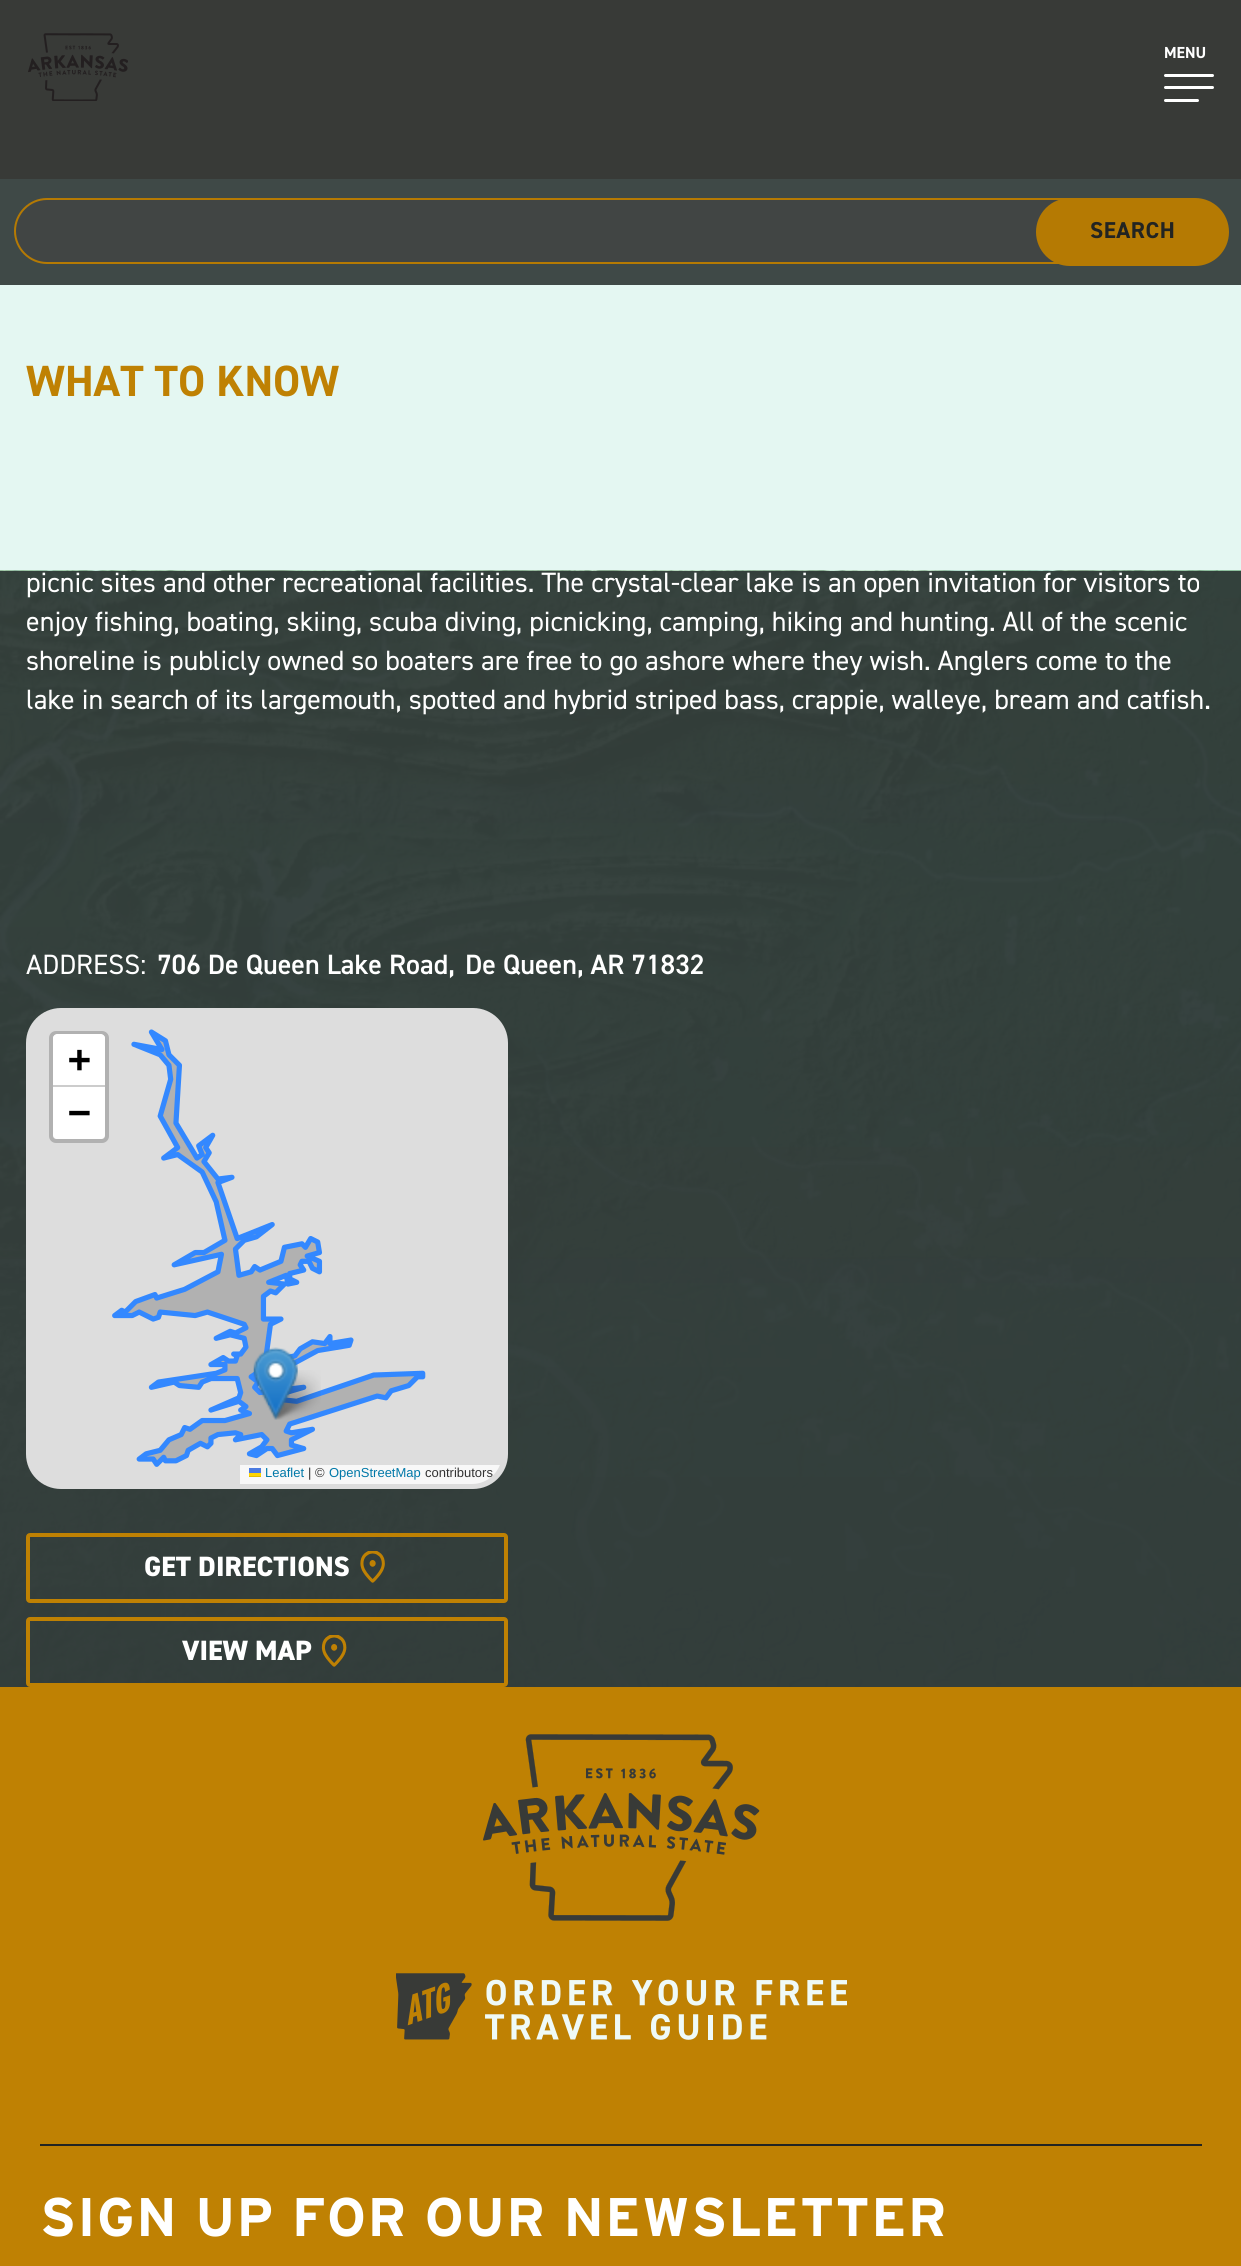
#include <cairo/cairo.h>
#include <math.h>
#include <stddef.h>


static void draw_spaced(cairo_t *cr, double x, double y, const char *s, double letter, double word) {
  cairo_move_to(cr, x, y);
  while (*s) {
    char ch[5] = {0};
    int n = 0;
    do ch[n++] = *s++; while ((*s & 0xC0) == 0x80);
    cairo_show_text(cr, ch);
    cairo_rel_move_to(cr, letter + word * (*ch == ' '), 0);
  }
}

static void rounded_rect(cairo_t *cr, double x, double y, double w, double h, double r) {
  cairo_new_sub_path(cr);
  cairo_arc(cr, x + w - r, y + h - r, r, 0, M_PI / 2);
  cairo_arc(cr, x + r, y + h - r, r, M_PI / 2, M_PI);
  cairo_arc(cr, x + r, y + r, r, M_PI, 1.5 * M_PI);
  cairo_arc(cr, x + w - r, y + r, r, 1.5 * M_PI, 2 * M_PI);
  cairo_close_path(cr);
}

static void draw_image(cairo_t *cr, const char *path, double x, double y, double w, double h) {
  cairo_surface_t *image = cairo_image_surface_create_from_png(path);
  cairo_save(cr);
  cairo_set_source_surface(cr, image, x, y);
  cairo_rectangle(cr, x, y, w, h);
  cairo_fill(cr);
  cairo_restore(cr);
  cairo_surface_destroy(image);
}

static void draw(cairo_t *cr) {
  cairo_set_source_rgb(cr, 228 / 255.0, 247 / 255.0, 242 / 255.0);
  cairo_paint(cr);
  cairo_set_source_rgb(cr, 56 / 255.0, 58 / 255.0, 55 / 255.0);
  cairo_rectangle(cr, 0, 0, 1241, 179);
  cairo_fill(cr);
  draw_image(cr, "images/1.png", 28, 33, 100, 68);
  cairo_set_source_rgb(cr, 1, 1, 1);
  rounded_rect(cr, 1164, 74, 50, 3, 1.5);
  cairo_fill(cr);
  rounded_rect(cr, 1164, 86, 50, 3, 1.5);
  cairo_fill(cr);
  rounded_rect(cr, 1164, 99, 35, 3, 1.5);
  cairo_fill(cr);
  cairo_set_source_rgb(cr, 63 / 255.0, 73 / 255.0, 71 / 255.0);
  cairo_rectangle(cr, 0, 179, 1241, 106);
  cairo_fill(cr);
  cairo_set_source_rgb(cr, 65 / 255.0, 69 / 255.0, 68 / 255.0);
  cairo_new_path(cr);
  cairo_move_to(cr, 47, 199);
  cairo_line_to(cr, 1070, 199);
  cairo_line_to(cr, 1070, 263);
  cairo_line_to(cr, 47, 263);
  cairo_curve_to(cr, 29.5, 263, 15, 248.5, 15, 231);
  cairo_curve_to(cr, 15, 213.5, 29.5, 199, 47, 199);
  cairo_close_path(cr);
  cairo_fill_preserve(cr);
  cairo_set_source_rgb(cr, 181 / 255.0, 122 / 255.0, 3 / 255.0);
  cairo_stroke(cr);
  rounded_rect(cr, 1036, 198, 193, 68, 34);
  cairo_fill(cr);
  draw_image(cr, "images/2.png", 0, 570, 1241, 1117);
  cairo_set_source_rgb(cr, 221 / 255.0, 221 / 255.0, 221 / 255.0);
  rounded_rect(cr, 26, 1008, 482, 481, 35);
  cairo_fill(cr);
  draw_image(cr, "images/3.png", 112, 1029, 314, 438);
  draw_image(cr, "images/5.png", 269, 1370, 52, 50);
  draw_image(cr, "images/4.png", 253, 1347, 45, 73);
  rounded_rect(cr, 51, 1033, 56, 108, 5);
  cairo_set_source_rgb(cr, 177 / 255.0, 177 / 255.0, 177 / 255.0);
  cairo_set_line_width(cr, 4);
  cairo_stroke(cr);
  cairo_set_source_rgb(cr, 1, 1, 1);
  cairo_new_path(cr);
  cairo_move_to(cr, 57, 1034);
  cairo_line_to(cr, 101, 1034);
  cairo_curve_to(cr, 103, 1034, 105, 1036, 105, 1038);
  cairo_line_to(cr, 105, 1087);
  cairo_line_to(cr, 53, 1087);
  cairo_line_to(cr, 53, 1038);
  cairo_curve_to(cr, 53, 1036, 55, 1034, 57, 1034);
  cairo_close_path(cr);
  cairo_fill(cr);
  cairo_set_source_rgb(cr, 204 / 255.0, 204 / 255.0, 204 / 255.0);
  cairo_rectangle(cr, 53, 1085, 52, 2);
  cairo_fill(cr);
  cairo_set_source_rgb(cr, 1, 1, 1);
  cairo_new_path(cr);
  cairo_move_to(cr, 53, 1087);
  cairo_line_to(cr, 105, 1087);
  cairo_line_to(cr, 105, 1135);
  cairo_curve_to(cr, 105, 1137, 103, 1139, 101, 1139);
  cairo_line_to(cr, 57, 1139);
  cairo_curve_to(cr, 55, 1139, 53, 1137, 53, 1135);
  cairo_close_path(cr);
  cairo_fill(cr);
  cairo_save(cr);
  rounded_rect(cr, 32, 1013, 470, 471, 30);
  cairo_clip(cr);
  cairo_set_source_rgb(cr, 248 / 255.0, 248 / 255.0, 248 / 255.0);
  cairo_rectangle(cr, 240, 1465, 260, 19);
  cairo_fill(cr);
  cairo_restore(cr);
  cairo_set_source_rgb(cr, 76 / 255.0, 123 / 255.0, 225 / 255.0);
  cairo_rectangle(cr, 249, 1468, 12, 5);
  cairo_fill(cr);
  cairo_set_source_rgb(cr, 1, 213 / 255.0, 0);
  cairo_rectangle(cr, 249, 1473, 12, 3);
  cairo_fill(cr);
  cairo_set_source_rgb(cr, 224 / 255.0, 188 / 255.0, 0);
  cairo_rectangle(cr, 249, 1476, 12, 1);
  cairo_fill(cr);
  rounded_rect(cr, 28, 1535, 478, 66, 2);
  cairo_set_source_rgb(cr, 191 / 255.0, 129 / 255.0, 3 / 255.0);
  cairo_stroke(cr);
  draw_image(cr, "images/6.png", 360, 1551, 25, 32);
  rounded_rect(cr, 28, 1619, 478, 66, 2);
  cairo_stroke(cr);
  draw_image(cr, "images/7.png", 321, 1635, 26, 32);
  cairo_rectangle(cr, 0, 1687, 1241, 579);
  cairo_fill(cr);
  draw_image(cr, "images/8.png", 483, 1734, 277, 187);
  draw_image(cr, "images/9.png", 396, 1973, 451, 67);
  cairo_set_source_rgb(cr, 34 / 255.0, 36 / 255.0, 34 / 255.0);
  cairo_rectangle(cr, 40, 2144, 1162, 2);
  cairo_fill(cr);
  cairo_select_font_face(cr, "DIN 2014", CAIRO_FONT_SLANT_NORMAL, CAIRO_FONT_WEIGHT_BOLD);
  cairo_set_font_size(cr, 16);
  cairo_set_source_rgb(cr, 1, 1, 1);
  cairo_move_to(cr, 1164, 58);
  cairo_show_text(cr, "MENU");
  cairo_set_font_size(cr, 23);
  cairo_set_source_rgb(cr, 34 / 255.0, 36 / 255.0, 34 / 255.0);
  draw_spaced(cr, 1090, 238, "SEARCH", 0.5, 0);
  cairo_set_font_size(cr, 43.75);
  cairo_set_source_rgb(cr, 191 / 255.0, 129 / 255.0, 3 / 255.0);
  cairo_move_to(cr, 26, 396);
  cairo_show_text(cr, "WHAT TO KNOW");
  cairo_select_font_face(cr, "DIN 2014", CAIRO_FONT_SLANT_NORMAL, CAIRO_FONT_WEIGHT_NORMAL);
  cairo_set_font_size(cr, 28);
  cairo_set_source_rgb(cr, 1, 1, 1);
  cairo_move_to(cr, 26, 592);
  cairo_show_text(cr, "picnic sites and other recreational facilities. The crystal-clear lake is an open invitation for visitors to");
  cairo_move_to(cr, 26, 631);
  cairo_show_text(cr, "enjoy fishing, boating, skiing, scuba diving, picnicking, camping, hiking and hunting. All of the scenic");
  cairo_move_to(cr, 26, 670);
  cairo_show_text(cr, "shoreline is publicly owned so boaters are free to go ashore where they wish. Anglers come to the");
  cairo_move_to(cr, 26, 709);
  cairo_show_text(cr, "lake in search of its largemouth, spotted and hybrid striped bass, crappie, walleye, bream and catfish.");
  cairo_move_to(cr, 26, 974);
  cairo_show_text(cr, "ADDRESS:");
  cairo_select_font_face(cr, "DIN 2014 SemiBold", CAIRO_FONT_SLANT_NORMAL, CAIRO_FONT_WEIGHT_NORMAL);
  cairo_move_to(cr, 157, 974);
  cairo_show_text(cr, "706 De Queen Lake Road,");
  cairo_move_to(cr, 465, 974);
  cairo_show_text(cr, "De Queen, AR 71832");
  cairo_select_font_face(cr, "DejaVu Sans Mono", CAIRO_FONT_SLANT_NORMAL, CAIRO_FONT_WEIGHT_BOLD);
  cairo_set_font_size(cr, 38);
  cairo_set_source_rgb(cr, 0, 0, 0);
  cairo_move_to(cr, 68, 1072);
  cairo_show_text(cr, "+");
  cairo_move_to(cr, 68, 1125);
  cairo_show_text(cr, "−");
  cairo_select_font_face(cr, "Liberation Sans", CAIRO_FONT_SLANT_NORMAL, CAIRO_FONT_WEIGHT_NORMAL);
  cairo_set_font_size(cr, 13);
  cairo_set_source_rgb(cr, 0, 120 / 255.0, 168 / 255.0);
  cairo_move_to(cr, 265, 1477);
  cairo_show_text(cr, "Leaflet");
  cairo_set_source_rgb(cr, 51 / 255.0, 51 / 255.0, 51 / 255.0);
  cairo_move_to(cr, 308, 1477);
  cairo_show_text(cr, "| ©");
  cairo_set_source_rgb(cr, 0, 120 / 255.0, 168 / 255.0);
  cairo_move_to(cr, 329, 1477);
  cairo_show_text(cr, "OpenStreetMap");
  cairo_save(cr);
  rounded_rect(cr, 32, 1013, 470, 471, 30);
  cairo_clip(cr);
  cairo_set_source_rgb(cr, 51 / 255.0, 51 / 255.0, 51 / 255.0);
  cairo_move_to(cr, 425, 1477);
  cairo_show_text(cr, "contributors");
  cairo_restore(cr);
  cairo_select_font_face(cr, "DIN 2014 ExtraBold", CAIRO_FONT_SLANT_NORMAL, CAIRO_FONT_WEIGHT_NORMAL);
  cairo_set_font_size(cr, 28);
  cairo_set_source_rgb(cr, 1, 1, 1);
  cairo_move_to(cr, 144, 1576);
  cairo_show_text(cr, "GET DIRECTIONS");
  cairo_move_to(cr, 182, 1660);
  cairo_show_text(cr, "VIEW MAP");
  cairo_select_font_face(cr, "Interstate", CAIRO_FONT_SLANT_NORMAL, CAIRO_FONT_WEIGHT_BOLD);
  cairo_set_font_size(cr, 54.25);
  draw_spaced(cr, 40, 2236, "SIGN UP FOR OUR NEWSLETTER", 1.35, 0);
}

int main(void) {
  cairo_surface_t *surface = cairo_image_surface_create(CAIRO_FORMAT_RGB24, 1241, 2266);
  cairo_t *cr = cairo_create(surface);
  cairo_font_options_t *options = cairo_font_options_create();
  cairo_font_options_set_hint_metrics(options, CAIRO_HINT_METRICS_OFF);
  cairo_font_options_set_hint_style(options, CAIRO_HINT_STYLE_NONE);
  cairo_set_font_options(cr, options);
  cairo_set_miter_limit(cr, 4);
  draw(cr);
  cairo_surface_write_to_png(surface, "out.png");
  cairo_font_options_destroy(options);
  cairo_destroy(cr);
  cairo_surface_destroy(surface);
  return 0;
}
